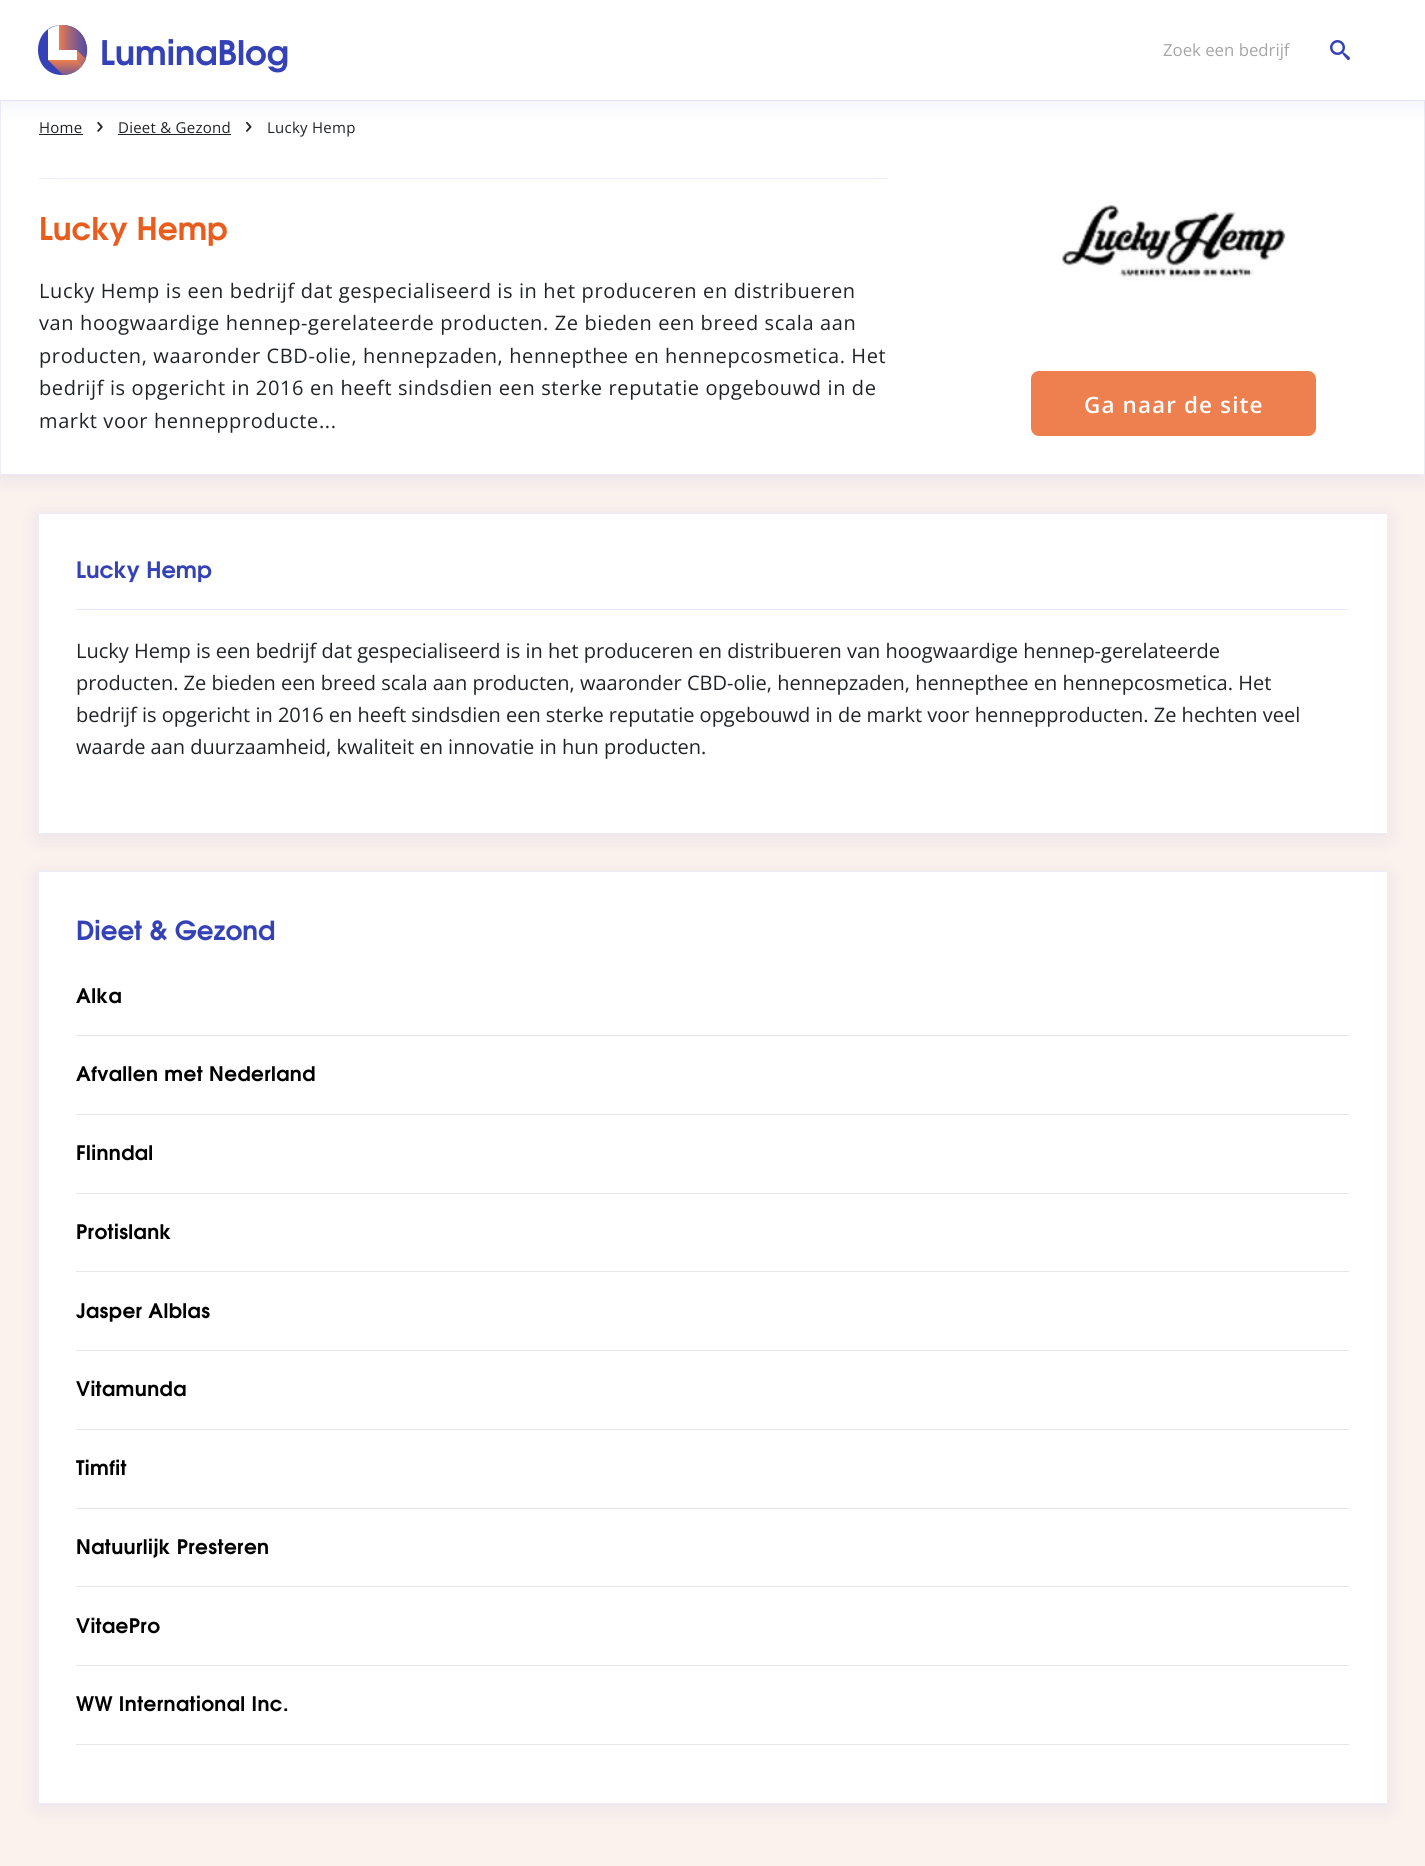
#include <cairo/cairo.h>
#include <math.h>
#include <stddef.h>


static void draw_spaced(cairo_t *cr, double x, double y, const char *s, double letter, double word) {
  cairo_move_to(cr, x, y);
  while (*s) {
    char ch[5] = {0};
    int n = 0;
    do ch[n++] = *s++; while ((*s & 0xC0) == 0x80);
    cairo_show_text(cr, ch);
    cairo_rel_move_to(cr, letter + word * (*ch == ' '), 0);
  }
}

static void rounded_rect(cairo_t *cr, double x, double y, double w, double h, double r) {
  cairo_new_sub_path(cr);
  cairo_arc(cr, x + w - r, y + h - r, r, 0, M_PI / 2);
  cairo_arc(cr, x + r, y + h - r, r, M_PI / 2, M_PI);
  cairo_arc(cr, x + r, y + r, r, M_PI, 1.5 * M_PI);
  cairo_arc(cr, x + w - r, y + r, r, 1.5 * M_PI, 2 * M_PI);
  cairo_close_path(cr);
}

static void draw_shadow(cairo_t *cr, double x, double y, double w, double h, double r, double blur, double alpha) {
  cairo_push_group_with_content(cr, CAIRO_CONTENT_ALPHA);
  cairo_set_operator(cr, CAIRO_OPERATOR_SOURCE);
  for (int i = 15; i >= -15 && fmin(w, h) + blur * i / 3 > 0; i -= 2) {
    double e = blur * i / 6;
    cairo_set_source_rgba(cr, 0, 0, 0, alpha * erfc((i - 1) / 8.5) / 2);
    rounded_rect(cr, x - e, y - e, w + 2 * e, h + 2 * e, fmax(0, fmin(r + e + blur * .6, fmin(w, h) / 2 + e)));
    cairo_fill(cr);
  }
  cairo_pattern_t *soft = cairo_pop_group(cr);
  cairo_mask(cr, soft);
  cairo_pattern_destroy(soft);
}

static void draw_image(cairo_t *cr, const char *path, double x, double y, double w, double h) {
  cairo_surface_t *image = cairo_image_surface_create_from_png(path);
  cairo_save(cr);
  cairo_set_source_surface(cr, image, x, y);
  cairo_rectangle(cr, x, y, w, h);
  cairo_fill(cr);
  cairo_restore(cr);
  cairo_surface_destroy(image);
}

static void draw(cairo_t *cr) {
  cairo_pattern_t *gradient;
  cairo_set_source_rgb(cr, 252 / 255.0, 242 / 255.0, 237 / 255.0);
  cairo_paint(cr);
  cairo_set_source_rgb(cr, 53 / 255.0, 66 / 255.0, 183 / 255.0);
  draw_shadow(cr, 0, 104, 1425, 375, 0, 11, 0.1);
  cairo_set_source_rgb(cr, 1, 1, 1);
  cairo_rectangle(cr, 0.5, 100.5, 1424, 374);
  cairo_fill_preserve(cr);
  cairo_set_source_rgb(cr, 235 / 255.0, 236 / 255.0, 248 / 255.0);
  cairo_set_line_width(cr, 1);
  cairo_stroke(cr);
  cairo_set_source_rgb(cr, 33 / 255.0, 36 / 255.0, 39 / 255.0);
  cairo_rectangle(cr, 39, 134, 44, 1);
  cairo_fill(cr);
  draw_image(cr, "images/2.png", 97, 121, 6, 11);
  cairo_rectangle(cr, 118, 134, 113, 1);
  cairo_fill(cr);
  draw_image(cr, "images/3.png", 246, 121, 6, 11);
  cairo_set_source_rgb(cr, 53 / 255.0, 66 / 255.0, 183 / 255.0);
  draw_shadow(cr, 0, 4, 1425, 100, 0, 11, 0.08);
  cairo_set_source_rgb(cr, 1, 1, 1);
  cairo_rectangle(cr, 0, 0, 1425, 100);
  cairo_fill(cr);
  cairo_set_source_rgb(cr, 53 / 255.0, 66 / 255.0, 183 / 255.0);
  cairo_new_path(cr);
  cairo_move_to(cr, 62, 25);
  cairo_curve_to(cr, 30, 25, 30, 75, 62, 75);
  cairo_curve_to(cr, 95, 75, 95, 25, 62, 25);
  cairo_close_path(cr);
  cairo_fill(cr);
  gradient = cairo_pattern_create_linear(59, 50, 107, 50);
  cairo_pattern_add_color_stop_rgba(gradient, 0, 238 / 255.0, 127 / 255.0, 78 / 255.0, 1);
  cairo_pattern_add_color_stop_rgba(gradient, 0.1, 204 / 255.0, 115 / 255.0, 97 / 255.0, 1);
  cairo_pattern_add_color_stop_rgba(gradient, 0.25, 158 / 255.0, 100 / 255.0, 123 / 255.0, 1);
  cairo_pattern_add_color_stop_rgba(gradient, 0.4, 120 / 255.0, 88 / 255.0, 144 / 255.0, 1);
  cairo_pattern_add_color_stop_rgba(gradient, 0.55, 90 / 255.0, 78 / 255.0, 161 / 255.0, 1);
  cairo_pattern_add_color_stop_rgba(gradient, 0.7, 69 / 255.0, 71 / 255.0, 173 / 255.0, 1);
  cairo_pattern_add_color_stop_rgba(gradient, 0.85, 57 / 255.0, 67 / 255.0, 180 / 255.0, 1);
  cairo_pattern_add_color_stop_rgba(gradient, 0.99, 53 / 255.0, 66 / 255.0, 183 / 255.0, 1);
  cairo_set_source(cr, gradient);
  cairo_pattern_destroy(gradient);
  cairo_new_path(cr);
  cairo_move_to(cr, 62, 25);
  cairo_curve_to(cr, 86, 25, 96, 55, 78, 69);
  cairo_line_to(cr, 59, 50);
  cairo_line_to(cr, 59, 25);
  cairo_close_path(cr);
  cairo_fill(cr);
  gradient = cairo_pattern_create_linear(75, 60, 75, 114);
  cairo_pattern_add_color_stop_rgba(gradient, 0, 238 / 255.0, 127 / 255.0, 78 / 255.0, 1);
  cairo_pattern_add_color_stop_rgba(gradient, 0.22, 144 / 255.0, 96 / 255.0, 130 / 255.0, 1);
  cairo_pattern_add_color_stop_rgba(gradient, 0.39, 78 / 255.0, 74 / 255.0, 168 / 255.0, 1);
  cairo_pattern_add_color_stop_rgba(gradient, 0.47, 53 / 255.0, 66 / 255.0, 183 / 255.0, 1);
  cairo_set_source(cr, gradient);
  cairo_pattern_destroy(gradient);
  cairo_new_path(cr);
  cairo_move_to(cr, 77, 60);
  cairo_line_to(cr, 82.5, 65.5);
  cairo_curve_to(cr, 78, 71, 71, 75, 63, 75);
  cairo_line_to(cr, 48, 60);
  cairo_close_path(cr);
  cairo_fill(cr);
  gradient = cairo_pattern_create_linear(75, 50, 104, 72);
  cairo_pattern_add_color_stop_rgba(gradient, 0, 238 / 255.0, 127 / 255.0, 78 / 255.0, 1);
  cairo_pattern_add_color_stop_rgba(gradient, 0.11, 238 / 255.0, 127 / 255.0, 78 / 255.0, 1);
  cairo_pattern_add_color_stop_rgba(gradient, 1, 53 / 255.0, 66 / 255.0, 183 / 255.0, 1);
  cairo_set_source(cr, gradient);
  cairo_pattern_destroy(gradient);
  cairo_new_path(cr);
  cairo_move_to(cr, 76.5, 60);
  cairo_line_to(cr, 76.5, 50);
  cairo_line_to(cr, 86, 59);
  cairo_curve_to(cr, 85, 61.5, 83.5, 63.5, 82, 65.5);
  cairo_close_path(cr);
  cairo_fill(cr);
  cairo_set_source_rgb(cr, 1, 1, 1);
  cairo_new_path(cr);
  cairo_move_to(cr, 77, 60);
  cairo_line_to(cr, 48, 60);
  cairo_line_to(cr, 48, 29.5);
  cairo_curve_to(cr, 51, 27.5, 55, 26, 59, 25);
  cairo_line_to(cr, 59, 50);
  cairo_line_to(cr, 77, 50);
  cairo_close_path(cr);
  cairo_fill(cr);
  draw_image(cr, "images/1.png", 1330, 40, 20, 20);
  cairo_set_source_rgb(cr, 235 / 255.0, 236 / 255.0, 248 / 255.0);
  cairo_rectangle(cr, 39, 178, 849, 1);
  cairo_fill(cr);
  draw_image(cr, "images/4.png", 1061, 204, 225, 77);
  cairo_set_source_rgb(cr, 238 / 255.0, 127 / 255.0, 78 / 255.0);
  rounded_rect(cr, 1031, 371, 285, 65, 8);
  cairo_fill(cr);
  cairo_set_source_rgb(cr, 53 / 255.0, 66 / 255.0, 183 / 255.0);
  draw_shadow(cr, 38, 875, 1350, 933, 0, 11, 0.1);
  cairo_set_source_rgb(cr, 1, 1, 1);
  cairo_rectangle(cr, 38.5, 871.5, 1349, 932);
  cairo_fill_preserve(cr);
  cairo_set_source_rgb(cr, 235 / 255.0, 236 / 255.0, 248 / 255.0);
  cairo_stroke(cr);
  cairo_set_source_rgb(cr, 53 / 255.0, 66 / 255.0, 183 / 255.0);
  draw_shadow(cr, 38, 516, 1350, 322, 0, 11, 0.1);
  cairo_set_source_rgb(cr, 1, 1, 1);
  cairo_rectangle(cr, 38.5, 513.5, 1349, 320);
  cairo_fill_preserve(cr);
  cairo_set_source_rgb(cr, 235 / 255.0, 236 / 255.0, 248 / 255.0);
  cairo_stroke(cr);
  cairo_set_source_rgb(cr, 237 / 255.0, 228 / 255.0, 1);
  cairo_rectangle(cr, 76, 609, 1273, 1);
  cairo_fill(cr);
  cairo_set_source_rgb(cr, 230 / 255.0, 230 / 255.0, 230 / 255.0);
  cairo_rectangle(cr, 76, 1035, 1273, 1);
  cairo_fill(cr);
  cairo_rectangle(cr, 76, 1114, 1273, 1);
  cairo_fill(cr);
  cairo_rectangle(cr, 76, 1193, 1273, 1);
  cairo_fill(cr);
  cairo_rectangle(cr, 76, 1271, 1273, 1);
  cairo_fill(cr);
  cairo_rectangle(cr, 76, 1350, 1273, 1);
  cairo_fill(cr);
  cairo_rectangle(cr, 76, 1429, 1273, 1);
  cairo_fill(cr);
  cairo_rectangle(cr, 76, 1508, 1273, 1);
  cairo_fill(cr);
  cairo_rectangle(cr, 76, 1586, 1273, 1);
  cairo_fill(cr);
  cairo_rectangle(cr, 76, 1665, 1273, 1);
  cairo_fill(cr);
  cairo_rectangle(cr, 76, 1744, 1273, 1);
  cairo_fill(cr);
  cairo_select_font_face(cr, "TeX Gyre Adventor", CAIRO_FONT_SLANT_NORMAL, CAIRO_FONT_WEIGHT_BOLD);
  cairo_set_font_size(cr, 33.75);
  cairo_set_source_rgb(cr, 53 / 255.0, 66 / 255.0, 183 / 255.0);
  cairo_move_to(cr, 100, 65);
  cairo_show_text(cr, "LuminaBlog");
  cairo_select_font_face(cr, "Open Sans", CAIRO_FONT_SLANT_NORMAL, CAIRO_FONT_WEIGHT_NORMAL);
  cairo_set_font_size(cr, 16.75);
  cairo_set_source_rgb(cr, 166 / 255.0, 166 / 255.0, 166 / 255.0);
  cairo_move_to(cr, 1163, 56);
  cairo_show_text(cr, "Zoek een bedrijf");
  cairo_set_font_size(cr, 15);
  cairo_set_source_rgb(cr, 33 / 255.0, 36 / 255.0, 39 / 255.0);
  draw_spaced(cr, 39, 133, "Home", 0.25, 0);
  draw_spaced(cr, 118, 133, "Dieet & Gezond", 0.25, 0);
  draw_spaced(cr, 267, 133, "Lucky Hemp", 0.25, 0);
  cairo_select_font_face(cr, "TeX Gyre Adventor", CAIRO_FONT_SLANT_NORMAL, CAIRO_FONT_WEIGHT_BOLD);
  cairo_set_font_size(cr, 31.25);
  cairo_set_source_rgb(cr, 232 / 255.0, 92 / 255.0, 30 / 255.0);
  cairo_move_to(cr, 39, 240);
  cairo_show_text(cr, "Lucky Hemp");
  cairo_select_font_face(cr, "Open Sans", CAIRO_FONT_SLANT_NORMAL, CAIRO_FONT_WEIGHT_NORMAL);
  cairo_set_font_size(cr, 20);
  cairo_set_source_rgb(cr, 33 / 255.0, 36 / 255.0, 39 / 255.0);
  draw_spaced(cr, 39, 298, "Lucky Hemp is een bedrijf dat gespecialiseerd is in het produceren en distribueren", 0.62, 0);
  draw_spaced(cr, 39, 330, "van hoogwaardige hennep-gerelateerde producten. Ze bieden een breed scala aan", 0.62, 0);
  draw_spaced(cr, 39, 363, "producten, waaronder CBD-olie, hennepzaden, hennepthee en hennepcosmetica. Het", 0.62, 0);
  draw_spaced(cr, 39, 395, "bedrijf is opgericht in 2016 en heeft sindsdien een sterke reputatie opgebouwd in de", 0.62, 0);
  draw_spaced(cr, 39, 428, "markt voor hennepproducte...", 0.62, 0);
  cairo_select_font_face(cr, "Open Sans SemiBold", CAIRO_FONT_SLANT_NORMAL, CAIRO_FONT_WEIGHT_NORMAL);
  cairo_set_font_size(cr, 22.5);
  cairo_set_source_rgb(cr, 1, 1, 1);
  draw_spaced(cr, 1084, 413, "Ga naar de site", 1.1, 0);
  cairo_select_font_face(cr, "TeX Gyre Adventor", CAIRO_FONT_SLANT_NORMAL, CAIRO_FONT_WEIGHT_BOLD);
  cairo_set_source_rgb(cr, 53 / 255.0, 66 / 255.0, 183 / 255.0);
  cairo_move_to(cr, 76, 578);
  cairo_show_text(cr, "Lucky Hemp");
  cairo_select_font_face(cr, "Open Sans", CAIRO_FONT_SLANT_NORMAL, CAIRO_FONT_WEIGHT_NORMAL);
  cairo_set_font_size(cr, 20);
  cairo_set_source_rgb(cr, 33 / 255.0, 36 / 255.0, 39 / 255.0);
  cairo_move_to(cr, 76, 658);
  cairo_show_text(cr, "Lucky Hemp is een bedrijf dat gespecialiseerd is in het produceren en distribueren van hoogwaardige hennep-gerelateerde");
  cairo_move_to(cr, 76, 690);
  cairo_show_text(cr, "producten. Ze bieden een breed scala aan producten, waaronder CBD-olie, hennepzaden, hennepthee en hennepcosmetica. Het");
  cairo_move_to(cr, 76, 722);
  cairo_show_text(cr, "bedrijf is opgericht in 2016 en heeft sindsdien een sterke reputatie opgebouwd in de markt voor hennepproducten. Ze hechten veel");
  cairo_move_to(cr, 76, 754);
  cairo_show_text(cr, "waarde aan duurzaamheid, kwaliteit en innovatie in hun producten.");
  cairo_select_font_face(cr, "TeX Gyre Adventor", CAIRO_FONT_SLANT_NORMAL, CAIRO_FONT_WEIGHT_BOLD);
  cairo_set_font_size(cr, 26.25);
  cairo_set_source_rgb(cr, 53 / 255.0, 66 / 255.0, 183 / 255.0);
  cairo_move_to(cr, 76, 940);
  cairo_show_text(cr, "Dieet & Gezond");
  cairo_set_font_size(cr, 20);
  cairo_set_source_rgb(cr, 0, 0, 0);
  draw_spaced(cr, 76, 1003, "Alka", 0.4, 0);
  draw_spaced(cr, 76, 1081, "Afvallen met Nederland", 0.4, 0);
  draw_spaced(cr, 76, 1160, "Flinndal", 0.4, 0);
  draw_spaced(cr, 76, 1239, "Protislank", 0.4, 0);
  draw_spaced(cr, 76, 1318, "Jasper Alblas", 0.4, 0);
  draw_spaced(cr, 76, 1396, "Vitamunda", 0.4, 0);
  draw_spaced(cr, 76, 1475, "Timfit", 0.4, 0);
  draw_spaced(cr, 76, 1554, "Natuurlijk Presteren", 0.4, 0);
  draw_spaced(cr, 76, 1633, "VitaePro", 0.4, 0);
  draw_spaced(cr, 76, 1711, "WW International Inc.", 0.4, 0);
}

int main(void) {
  cairo_surface_t *surface = cairo_image_surface_create(CAIRO_FORMAT_RGB24, 1425, 1866);
  cairo_t *cr = cairo_create(surface);
  cairo_font_options_t *options = cairo_font_options_create();
  cairo_font_options_set_hint_metrics(options, CAIRO_HINT_METRICS_OFF);
  cairo_font_options_set_hint_style(options, CAIRO_HINT_STYLE_NONE);
  cairo_set_font_options(cr, options);
  cairo_set_miter_limit(cr, 4);
  draw(cr);
  cairo_surface_write_to_png(surface, "out.png");
  cairo_font_options_destroy(options);
  cairo_destroy(cr);
  cairo_surface_destroy(surface);
  return 0;
}
